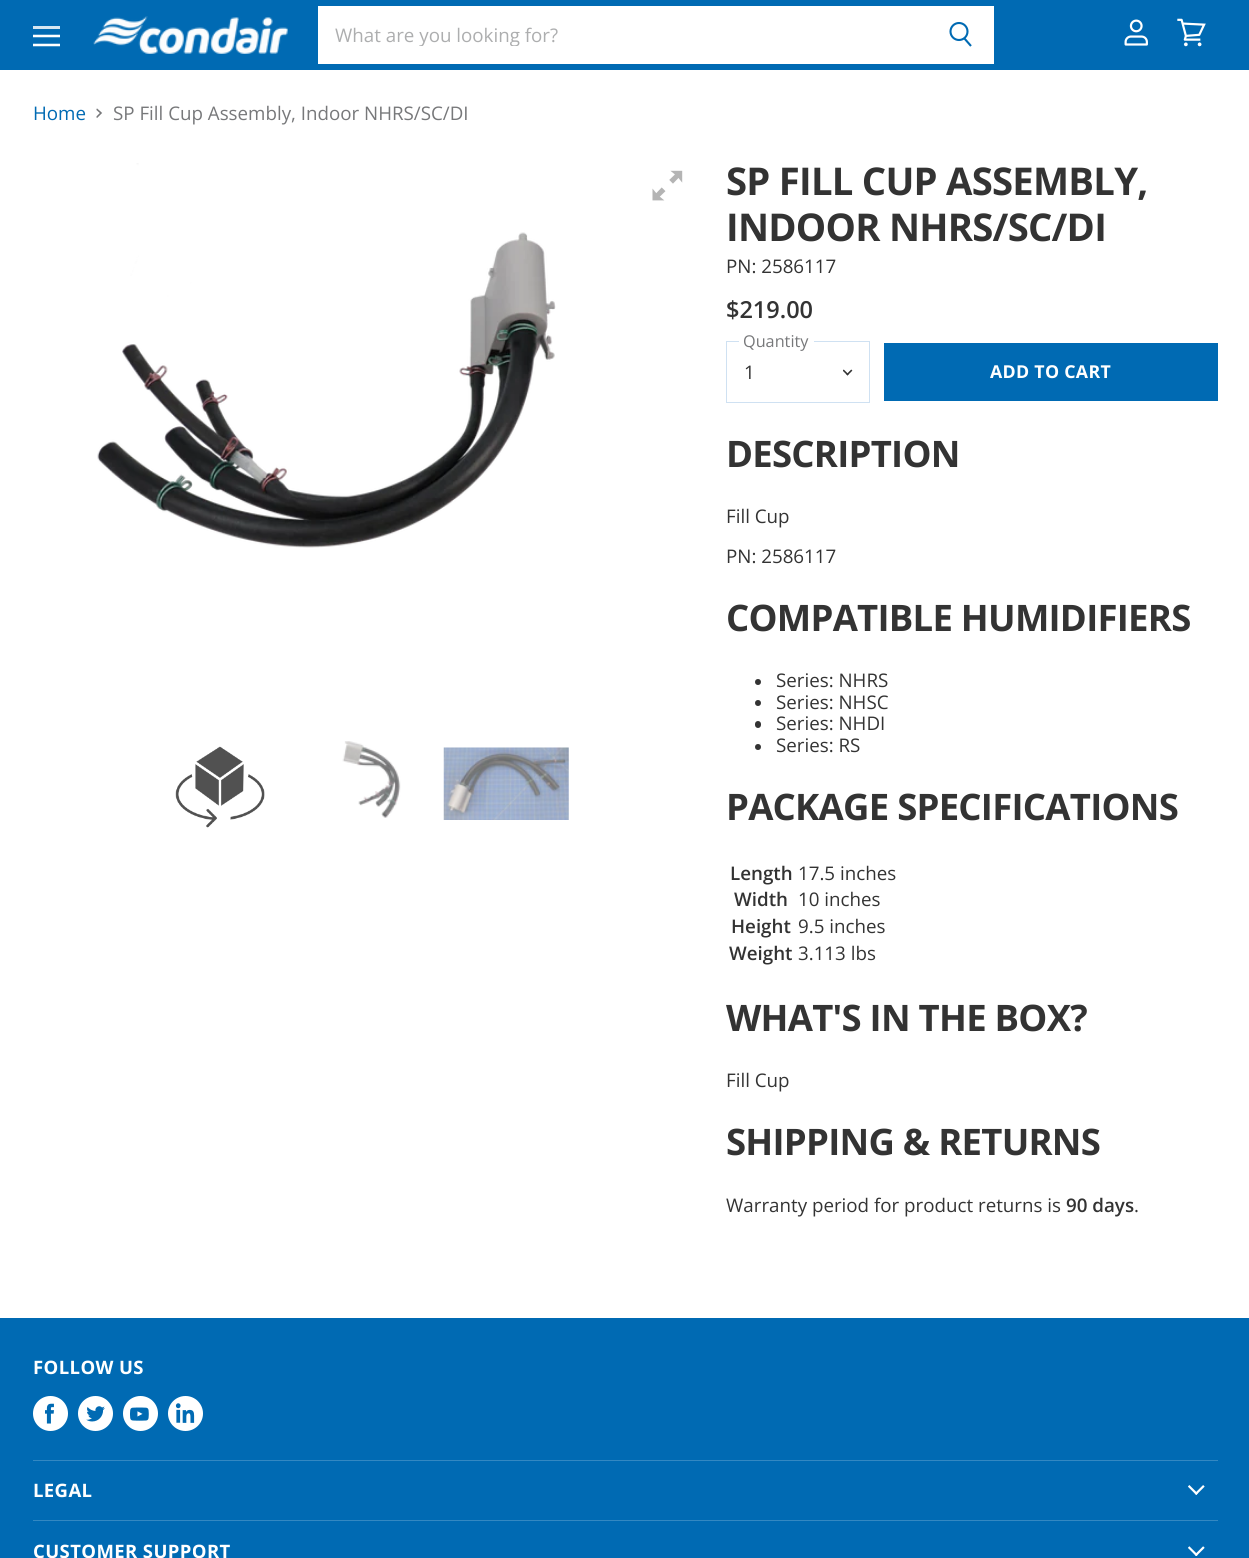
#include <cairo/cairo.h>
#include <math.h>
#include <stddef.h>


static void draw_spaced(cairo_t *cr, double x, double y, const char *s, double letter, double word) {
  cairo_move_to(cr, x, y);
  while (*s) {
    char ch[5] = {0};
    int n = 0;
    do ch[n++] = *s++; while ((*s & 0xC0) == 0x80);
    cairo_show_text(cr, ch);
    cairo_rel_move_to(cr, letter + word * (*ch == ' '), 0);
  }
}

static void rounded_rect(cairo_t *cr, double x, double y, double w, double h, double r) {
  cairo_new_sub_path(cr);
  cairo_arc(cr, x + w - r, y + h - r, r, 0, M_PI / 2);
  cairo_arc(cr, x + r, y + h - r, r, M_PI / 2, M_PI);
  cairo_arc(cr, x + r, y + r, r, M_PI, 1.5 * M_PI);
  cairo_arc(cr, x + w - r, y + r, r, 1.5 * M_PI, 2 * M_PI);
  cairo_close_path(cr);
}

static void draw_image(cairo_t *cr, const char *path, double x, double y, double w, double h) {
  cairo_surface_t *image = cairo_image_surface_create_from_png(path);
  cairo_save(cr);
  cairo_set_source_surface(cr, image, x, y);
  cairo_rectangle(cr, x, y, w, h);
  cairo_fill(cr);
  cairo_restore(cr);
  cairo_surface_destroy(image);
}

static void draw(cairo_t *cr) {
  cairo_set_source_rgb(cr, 1, 1, 1);
  cairo_paint(cr);
  cairo_set_source_rgb(cr, 0, 106 / 255.0, 179 / 255.0);
  cairo_rectangle(cr, 0, 0, 1249, 70);
  cairo_fill(cr);
  cairo_set_source_rgb(cr, 213 / 255.0, 230 / 255.0, 242 / 255.0);
  cairo_rectangle(cr, 33, 26, 27, 3);
  cairo_fill(cr);
  cairo_save(cr);
  cairo_rectangle(cr, 33, 25, 27, 23);
  cairo_clip(cr);
  cairo_new_path(cr);
  cairo_move_to(cr, 59, 36);
  cairo_line_to(cr, 34, 36);
  cairo_move_to(cr, 59, 45);
  cairo_line_to(cr, 34, 45);
  cairo_set_source_rgb(cr, 1, 1, 1);
  cairo_set_line_width(cr, 2.5);
  cairo_set_line_cap(cr, CAIRO_LINE_CAP_SQUARE);
  cairo_set_line_join(cr, CAIRO_LINE_JOIN_ROUND);
  cairo_stroke(cr);
  cairo_restore(cr);
  draw_image(cr, "images/1.png", 93, 16, 195, 38);
  cairo_set_source_rgb(cr, 1, 1, 1);
  cairo_rectangle(cr, 318, 6, 676, 58);
  cairo_fill(cr);
  cairo_new_path(cr);
  cairo_move_to(cr, 971, 46);
  cairo_line_to(cr, 964, 38);
  cairo_set_source_rgb(cr, 0, 106 / 255.0, 179 / 255.0);
  cairo_set_line_width(cr, 2.1);
  cairo_stroke(cr);
  cairo_arc(cr, 959, 31.5, 8.5, 0, 2 * M_PI);
  cairo_stroke(cr);
  draw_image(cr, "images/2.png", 1124, 19, 24, 27);
  draw_image(cr, "images/3.png", 1177, 18, 29, 29);
  cairo_save(cr);
  cairo_new_path(cr);
  cairo_move_to(cr, 96.5, 118.5);
  cairo_line_to(cr, 96.5, 108.5);
  cairo_line_to(cr, 102.5, 108.5);
  cairo_line_to(cr, 102.5, 118.5);
  cairo_close_path(cr);
  cairo_clip(cr);
  cairo_new_path(cr);
  cairo_move_to(cr, 96.5, 117.5);
  cairo_line_to(cr, 101, 113);
  cairo_line_to(cr, 96.5, 109);
  cairo_set_source_rgb(cr, 119 / 255.0, 120 / 255.0, 122 / 255.0);
  cairo_set_line_width(cr, 1.6);
  cairo_stroke(cr);
  cairo_restore(cr);
  draw_image(cr, "images/4.png", 97, 163, 459, 385);
  draw_image(cr, "images/5.png", 652, 170, 31, 31);
  draw_image(cr, "images/6.png", 175, 746, 90, 82);
  draw_image(cr, "images/7.png", 342, 741, 59, 77);
  draw_image(cr, "images/8.png", 443, 747, 126, 73);
  cairo_rectangle(cr, 726.5, 341.5, 143, 61);
  cairo_set_source_rgb(cr, 207 / 255.0, 225 / 255.0, 242 / 255.0);
  cairo_set_line_width(cr, 1);
  cairo_stroke(cr);
  cairo_set_source_rgb(cr, 1, 1, 1);
  cairo_rectangle(cr, 739, 341, 75, 1);
  cairo_fill(cr);
  draw_image(cr, "images/9.png", 843, 369, 10, 7);
  cairo_set_source_rgb(cr, 0, 106 / 255.0, 179 / 255.0);
  cairo_rectangle(cr, 884, 343, 334, 58);
  cairo_fill(cr);
  cairo_set_source_rgb(cr, 51 / 255.0, 51 / 255.0, 51 / 255.0);
  cairo_arc(cr, 758, 682, 3, 0, 2 * M_PI);
  cairo_fill(cr);
  cairo_arc(cr, 758, 703, 3, 0, 2 * M_PI);
  cairo_fill(cr);
  rounded_rect(cr, 755, 721, 6, 7, 3);
  cairo_fill(cr);
  cairo_arc(cr, 758, 747, 3, 0, 2 * M_PI);
  cairo_fill(cr);
  cairo_set_source_rgb(cr, 0, 106 / 255.0, 179 / 255.0);
  cairo_rectangle(cr, 0, 1318, 1249, 240);
  cairo_fill(cr);
  cairo_set_source_rgb(cr, 51 / 255.0, 136 / 255.0, 194 / 255.0);
  cairo_rectangle(cr, 33, 1460, 1185, 1);
  cairo_fill(cr);
  cairo_set_source_rgb(cr, 1, 1, 1);
  cairo_arc(cr, 50.5, 1413.5, 17.5, 0, 2 * M_PI);
  cairo_fill(cr);
  draw_image(cr, "images/10.png", 45, 1403, 9, 21);
  cairo_arc(cr, 95.5, 1413.5, 17.5, 0, 2 * M_PI);
  cairo_fill(cr);
  draw_image(cr, "images/11.png", 86, 1406, 19, 16);
  cairo_arc(cr, 140.5, 1413.5, 17.5, 0, 2 * M_PI);
  cairo_fill(cr);
  draw_image(cr, "images/12.png", 130, 1407, 19, 14);
  cairo_arc(cr, 185.5, 1413.5, 17.5, 0, 2 * M_PI);
  cairo_fill(cr);
  draw_image(cr, "images/13.png", 175, 1403, 20, 20);
  cairo_set_source_rgb(cr, 51 / 255.0, 136 / 255.0, 194 / 255.0);
  cairo_rectangle(cr, 33, 1520, 1185, 1);
  cairo_fill(cr);
  draw_image(cr, "images/14.png", 1188, 1485, 17, 10);
  draw_image(cr, "images/15.png", 1188, 1546, 17, 10);
  cairo_save(cr);
  cairo_rectangle(cr, 335, 21, 575, 25);
  cairo_clip(cr);
  cairo_select_font_face(cr, "Open Sans", CAIRO_FONT_SLANT_NORMAL, CAIRO_FONT_WEIGHT_NORMAL);
  cairo_set_font_size(cr, 18.75);
  cairo_set_source_rgb(cr, 173 / 255.0, 174 / 255.0, 175 / 255.0);
  cairo_move_to(cr, 335, 42);
  cairo_show_text(cr, "What are you looking for?");
  cairo_restore(cr);
  cairo_select_font_face(cr, "Open Sans", CAIRO_FONT_SLANT_NORMAL, CAIRO_FONT_WEIGHT_NORMAL);
  cairo_set_font_size(cr, 18.75);
  cairo_set_source_rgb(cr, 0, 106 / 255.0, 179 / 255.0);
  cairo_move_to(cr, 33, 120);
  cairo_show_text(cr, "Home");
  cairo_set_source_rgb(cr, 119 / 255.0, 120 / 255.0, 122 / 255.0);
  cairo_move_to(cr, 113, 120);
  cairo_show_text(cr, "SP Fill Cup Assembly, Indoor NHRS/SC/DI");
  cairo_select_font_face(cr, "Open Sans", CAIRO_FONT_SLANT_NORMAL, CAIRO_FONT_WEIGHT_BOLD);
  cairo_set_font_size(cr, 38.25);
  cairo_set_source_rgb(cr, 51 / 255.0, 51 / 255.0, 51 / 255.0);
  draw_spaced(cr, 726, 195, "SP FILL CUP ASSEMBLY,", -0.75, 0);
  draw_spaced(cr, 726, 241, "INDOOR NHRS/SC/DI", -0.75, 0);
  cairo_select_font_face(cr, "Open Sans", CAIRO_FONT_SLANT_NORMAL, CAIRO_FONT_WEIGHT_NORMAL);
  cairo_set_font_size(cr, 18.75);
  cairo_move_to(cr, 726, 273);
  cairo_show_text(cr, "PN: 2586117");
  cairo_select_font_face(cr, "Open Sans SemiBold", CAIRO_FONT_SLANT_NORMAL, CAIRO_FONT_WEIGHT_NORMAL);
  cairo_set_font_size(cr, 23.5);
  cairo_move_to(cr, 726, 318);
  cairo_show_text(cr, "$219.00");
  cairo_select_font_face(cr, "Open Sans", CAIRO_FONT_SLANT_NORMAL, CAIRO_FONT_WEIGHT_NORMAL);
  cairo_set_font_size(cr, 16.25);
  cairo_set_source_rgb(cr, 119 / 255.0, 120 / 255.0, 122 / 255.0);
  cairo_move_to(cr, 743, 347);
  cairo_show_text(cr, "Quantity");
  cairo_set_font_size(cr, 18.75);
  cairo_set_source_rgb(cr, 51 / 255.0, 51 / 255.0, 51 / 255.0);
  cairo_move_to(cr, 744, 379);
  cairo_show_text(cr, "1");
  cairo_select_font_face(cr, "Open Sans", CAIRO_FONT_SLANT_NORMAL, CAIRO_FONT_WEIGHT_BOLD);
  cairo_set_font_size(cr, 17.75);
  cairo_set_source_rgb(cr, 1, 1, 1);
  draw_spaced(cr, 990, 378, "ADD TO CART", 0.3, 0);
  cairo_set_font_size(cr, 36.5);
  cairo_set_source_rgb(cr, 51 / 255.0, 51 / 255.0, 51 / 255.0);
  draw_spaced(cr, 726, 467, "DESCRIPTION", -0.75, 0);
  cairo_select_font_face(cr, "Open Sans", CAIRO_FONT_SLANT_NORMAL, CAIRO_FONT_WEIGHT_NORMAL);
  cairo_set_font_size(cr, 18.75);
  cairo_move_to(cr, 726, 523);
  cairo_show_text(cr, "Fill Cup");
  cairo_move_to(cr, 726, 563);
  cairo_show_text(cr, "PN: 2586117");
  cairo_select_font_face(cr, "Open Sans", CAIRO_FONT_SLANT_NORMAL, CAIRO_FONT_WEIGHT_BOLD);
  cairo_set_font_size(cr, 36.5);
  draw_spaced(cr, 726, 631, "COMPATIBLE HUMIDIFIERS", -0.75, 0);
  cairo_select_font_face(cr, "Open Sans", CAIRO_FONT_SLANT_NORMAL, CAIRO_FONT_WEIGHT_NORMAL);
  cairo_set_font_size(cr, 18.75);
  cairo_move_to(cr, 776, 687);
  cairo_show_text(cr, "Series: NHRS");
  cairo_move_to(cr, 776, 709);
  cairo_show_text(cr, "Series: NHSC");
  cairo_move_to(cr, 776, 730);
  cairo_show_text(cr, "Series: NHDI");
  cairo_move_to(cr, 776, 752);
  cairo_show_text(cr, "Series: RS");
  cairo_select_font_face(cr, "Open Sans", CAIRO_FONT_SLANT_NORMAL, CAIRO_FONT_WEIGHT_BOLD);
  cairo_set_font_size(cr, 36.5);
  draw_spaced(cr, 726, 820, "PACKAGE SPECIFICATIONS", -0.75, 0);
  cairo_select_font_face(cr, "Open Sans SemiBold", CAIRO_FONT_SLANT_NORMAL, CAIRO_FONT_WEIGHT_NORMAL);
  cairo_set_font_size(cr, 18.75);
  cairo_move_to(cr, 730, 880);
  cairo_show_text(cr, "Length");
  cairo_select_font_face(cr, "Open Sans", CAIRO_FONT_SLANT_NORMAL, CAIRO_FONT_WEIGHT_NORMAL);
  cairo_move_to(cr, 798, 880);
  cairo_show_text(cr, "17.5 inches");
  cairo_select_font_face(cr, "Open Sans SemiBold", CAIRO_FONT_SLANT_NORMAL, CAIRO_FONT_WEIGHT_NORMAL);
  cairo_move_to(cr, 734, 906);
  cairo_show_text(cr, "Width");
  cairo_select_font_face(cr, "Open Sans", CAIRO_FONT_SLANT_NORMAL, CAIRO_FONT_WEIGHT_NORMAL);
  cairo_move_to(cr, 798, 906);
  cairo_show_text(cr, "10 inches");
  cairo_select_font_face(cr, "Open Sans SemiBold", CAIRO_FONT_SLANT_NORMAL, CAIRO_FONT_WEIGHT_NORMAL);
  cairo_move_to(cr, 731, 933);
  cairo_show_text(cr, "Height");
  cairo_select_font_face(cr, "Open Sans", CAIRO_FONT_SLANT_NORMAL, CAIRO_FONT_WEIGHT_NORMAL);
  cairo_move_to(cr, 798, 933);
  cairo_show_text(cr, "9.5 inches");
  cairo_select_font_face(cr, "Open Sans SemiBold", CAIRO_FONT_SLANT_NORMAL, CAIRO_FONT_WEIGHT_NORMAL);
  cairo_move_to(cr, 729, 960);
  cairo_show_text(cr, "Weight");
  cairo_select_font_face(cr, "Open Sans", CAIRO_FONT_SLANT_NORMAL, CAIRO_FONT_WEIGHT_NORMAL);
  cairo_move_to(cr, 798, 960);
  cairo_show_text(cr, "3.113 lbs");
  cairo_select_font_face(cr, "Open Sans", CAIRO_FONT_SLANT_NORMAL, CAIRO_FONT_WEIGHT_BOLD);
  cairo_set_font_size(cr, 36.5);
  draw_spaced(cr, 726, 1031, "WHAT'S IN THE BOX?", -0.75, 0);
  cairo_select_font_face(cr, "Open Sans", CAIRO_FONT_SLANT_NORMAL, CAIRO_FONT_WEIGHT_NORMAL);
  cairo_set_font_size(cr, 18.75);
  cairo_move_to(cr, 726, 1087);
  cairo_show_text(cr, "Fill Cup");
  cairo_select_font_face(cr, "Open Sans", CAIRO_FONT_SLANT_NORMAL, CAIRO_FONT_WEIGHT_BOLD);
  cairo_set_font_size(cr, 36.5);
  draw_spaced(cr, 726, 1155, "SHIPPING & RETURNS", -0.75, 0);
  cairo_select_font_face(cr, "Open Sans", CAIRO_FONT_SLANT_NORMAL, CAIRO_FONT_WEIGHT_NORMAL);
  cairo_set_font_size(cr, 18.75);
  cairo_move_to(cr, 726, 1212);
  cairo_show_text(cr, "Warranty period for product returns is");
  cairo_select_font_face(cr, "Open Sans SemiBold", CAIRO_FONT_SLANT_NORMAL, CAIRO_FONT_WEIGHT_NORMAL);
  cairo_move_to(cr, 1066, 1212);
  cairo_show_text(cr, "90 days");
  cairo_select_font_face(cr, "Open Sans", CAIRO_FONT_SLANT_NORMAL, CAIRO_FONT_WEIGHT_NORMAL);
  cairo_move_to(cr, 1134, 1212);
  cairo_show_text(cr, ".");
  cairo_select_font_face(cr, "Open Sans", CAIRO_FONT_SLANT_NORMAL, CAIRO_FONT_WEIGHT_BOLD);
  cairo_set_font_size(cr, 18.5);
  cairo_set_source_rgb(cr, 1, 1, 1);
  draw_spaced(cr, 33, 1374, "FOLLOW US", 0.4, 0);
  draw_spaced(cr, 33, 1497, "LEGAL", 0.4, 0);
  draw_spaced(cr, 33, 1558, "CUSTOMER SUPPORT", 0.4, 0);
}

int main(void) {
  cairo_surface_t *surface = cairo_image_surface_create(CAIRO_FORMAT_RGB24, 1249, 1558);
  cairo_t *cr = cairo_create(surface);
  cairo_font_options_t *options = cairo_font_options_create();
  cairo_font_options_set_hint_metrics(options, CAIRO_HINT_METRICS_OFF);
  cairo_font_options_set_hint_style(options, CAIRO_HINT_STYLE_NONE);
  cairo_set_font_options(cr, options);
  cairo_set_miter_limit(cr, 4);
  draw(cr);
  cairo_surface_write_to_png(surface, "out.png");
  cairo_font_options_destroy(options);
  cairo_destroy(cr);
  cairo_surface_destroy(surface);
  return 0;
}
